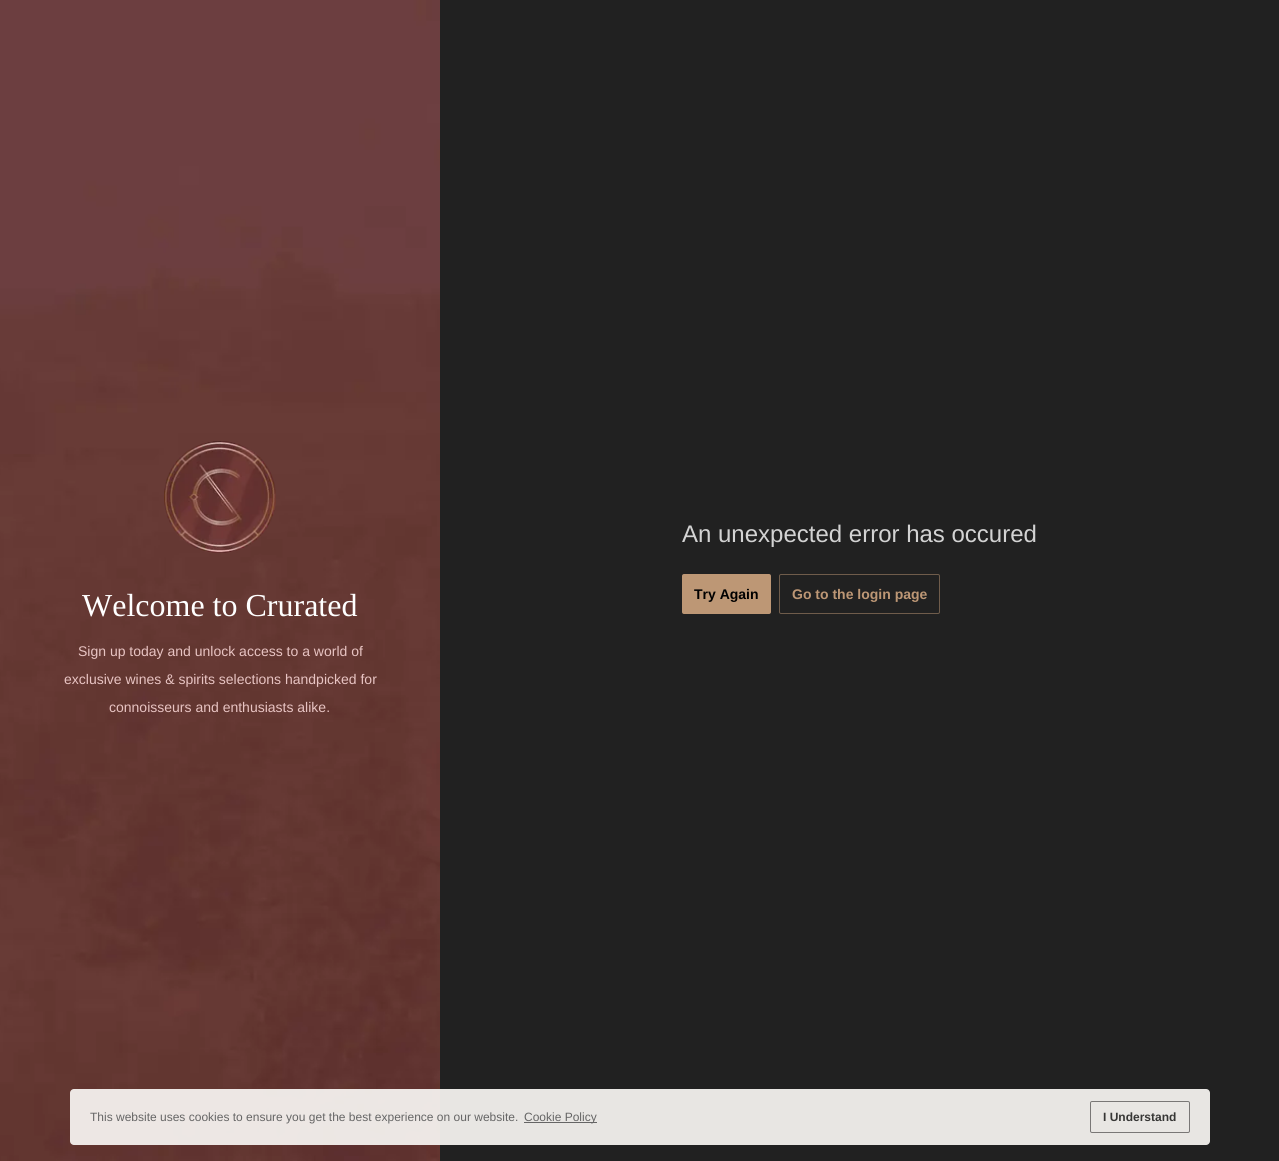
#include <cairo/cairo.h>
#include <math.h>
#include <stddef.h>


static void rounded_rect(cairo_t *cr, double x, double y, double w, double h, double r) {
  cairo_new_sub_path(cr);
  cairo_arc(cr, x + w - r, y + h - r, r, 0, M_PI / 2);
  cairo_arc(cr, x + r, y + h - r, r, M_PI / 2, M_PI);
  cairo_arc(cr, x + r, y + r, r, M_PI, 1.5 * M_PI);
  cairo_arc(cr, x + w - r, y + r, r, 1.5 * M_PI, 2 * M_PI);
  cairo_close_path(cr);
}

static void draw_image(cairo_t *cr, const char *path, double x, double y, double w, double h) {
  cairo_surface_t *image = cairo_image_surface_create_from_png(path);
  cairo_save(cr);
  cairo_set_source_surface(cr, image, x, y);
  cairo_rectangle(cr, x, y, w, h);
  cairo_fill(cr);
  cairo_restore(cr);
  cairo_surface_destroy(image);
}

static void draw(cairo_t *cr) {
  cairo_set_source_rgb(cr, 33 / 255.0, 33 / 255.0, 33 / 255.0);
  cairo_paint(cr);
  cairo_set_source_rgb(cr, 189 / 255.0, 151 / 255.0, 117 / 255.0);
  rounded_rect(cr, 682, 574, 89, 40, 2);
  cairo_fill(cr);
  rounded_rect(cr, 779.5, 574.5, 160, 39, 1.5);
  cairo_set_source_rgb(cr, 111 / 255.0, 92 / 255.0, 75 / 255.0);
  cairo_set_line_width(cr, 1);
  cairo_stroke(cr);
  draw_image(cr, "images/1.png", 0, 0, 440, 1161);
  draw_image(cr, "images/2.png", 164, 441, 112, 112);
  cairo_set_source_rgba(cr, 249 / 255.0, 246 / 255.0, 243 / 255.0, 0.92);
  rounded_rect(cr, 70, 1089, 1140, 56, 4);
  cairo_fill(cr);
  cairo_set_source_rgb(cr, 101 / 255.0, 101 / 255.0, 101 / 255.0);
  cairo_rectangle(cr, 524, 1122, 73, 1);
  cairo_fill(cr);
  rounded_rect(cr, 1090.5, 1101.5, 99, 31, 1.5);
  cairo_set_source_rgb(cr, 121 / 255.0, 119 / 255.0, 118 / 255.0);
  cairo_stroke(cr);
  cairo_select_font_face(cr, "Liberation Sans", CAIRO_FONT_SLANT_NORMAL, CAIRO_FONT_WEIGHT_NORMAL);
  cairo_set_font_size(cr, 24);
  cairo_set_source_rgb(cr, 211 / 255.0, 211 / 255.0, 211 / 255.0);
  cairo_move_to(cr, 682, 542);
  cairo_show_text(cr, "An unexpected error has occured");
  cairo_select_font_face(cr, "Liberation Sans", CAIRO_FONT_SLANT_NORMAL, CAIRO_FONT_WEIGHT_BOLD);
  cairo_set_font_size(cr, 14);
  cairo_set_source_rgb(cr, 0, 0, 0);
  cairo_move_to(cr, 694, 599);
  cairo_show_text(cr, "Try Again");
  cairo_set_source_rgb(cr, 189 / 255.0, 151 / 255.0, 117 / 255.0);
  cairo_move_to(cr, 792, 599);
  cairo_show_text(cr, "Go to the login page");
  cairo_select_font_face(cr, "Liberation Serif", CAIRO_FONT_SLANT_NORMAL, CAIRO_FONT_WEIGHT_NORMAL);
  cairo_set_font_size(cr, 32);
  cairo_set_source_rgb(cr, 1, 1, 1);
  cairo_move_to(cr, 82, 616);
  cairo_show_text(cr, "Welcome to Crurated");
  cairo_select_font_face(cr, "Liberation Sans", CAIRO_FONT_SLANT_NORMAL, CAIRO_FONT_WEIGHT_NORMAL);
  cairo_set_font_size(cr, 14);
  cairo_set_source_rgb(cr, 232 / 255.0, 196 / 255.0, 195 / 255.0);
  cairo_move_to(cr, 78, 656);
  cairo_show_text(cr, "Sign up today and unlock access to a world of");
  cairo_move_to(cr, 64, 684);
  cairo_show_text(cr, "exclusive wines & spirits selections handpicked for");
  cairo_move_to(cr, 109, 712);
  cairo_show_text(cr, "connoisseurs and enthusiasts alike.");
  cairo_set_font_size(cr, 12);
  cairo_set_source_rgb(cr, 101 / 255.0, 101 / 255.0, 101 / 255.0);
  cairo_move_to(cr, 90, 1121);
  cairo_show_text(cr, "This website uses cookies to ensure you get the best experience on our website.");
  cairo_move_to(cr, 524, 1121);
  cairo_show_text(cr, "Cookie Policy");
  cairo_select_font_face(cr, "Liberation Sans", CAIRO_FONT_SLANT_NORMAL, CAIRO_FONT_WEIGHT_BOLD);
  cairo_set_source_rgb(cr, 54 / 255.0, 54 / 255.0, 53 / 255.0);
  cairo_move_to(cr, 1103, 1121);
  cairo_show_text(cr, "I Understand");
}

int main(void) {
  cairo_surface_t *surface = cairo_image_surface_create(CAIRO_FORMAT_RGB24, 1279, 1161);
  cairo_t *cr = cairo_create(surface);
  cairo_font_options_t *options = cairo_font_options_create();
  cairo_font_options_set_hint_metrics(options, CAIRO_HINT_METRICS_OFF);
  cairo_font_options_set_hint_style(options, CAIRO_HINT_STYLE_NONE);
  cairo_set_font_options(cr, options);
  cairo_set_miter_limit(cr, 4);
  draw(cr);
  cairo_surface_write_to_png(surface, "out.png");
  cairo_font_options_destroy(options);
  cairo_destroy(cr);
  cairo_surface_destroy(surface);
  return 0;
}
